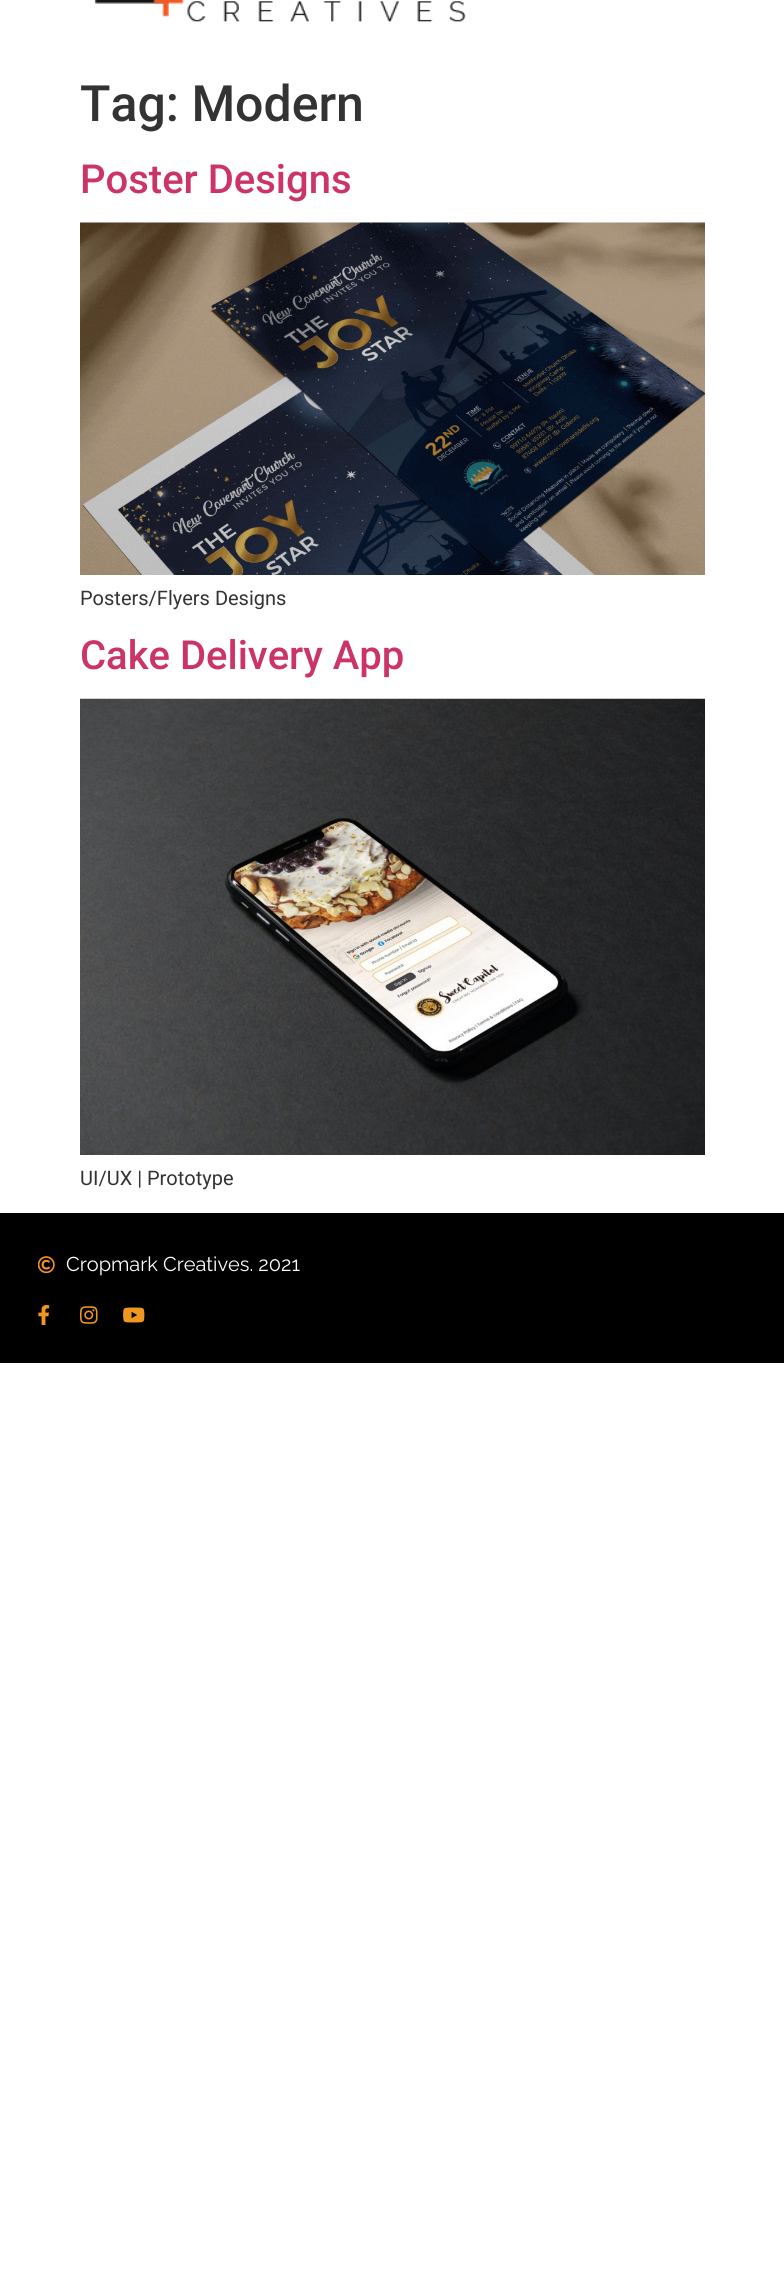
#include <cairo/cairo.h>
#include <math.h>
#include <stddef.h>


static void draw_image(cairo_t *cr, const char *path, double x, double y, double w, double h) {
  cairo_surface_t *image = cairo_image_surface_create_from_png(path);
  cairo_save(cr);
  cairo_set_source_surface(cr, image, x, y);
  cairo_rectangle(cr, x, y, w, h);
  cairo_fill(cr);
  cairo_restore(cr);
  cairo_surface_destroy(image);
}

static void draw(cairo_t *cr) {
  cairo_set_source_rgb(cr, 1, 1, 1);
  cairo_paint(cr);
  draw_image(cr, "images/1.png", 94, 0, 372, 22);
  draw_image(cr, "images/2.png", 80, 222, 625, 353);
  draw_image(cr, "images/3.png", 80, 698, 625, 457);
  cairo_set_source_rgb(cr, 0, 0, 0);
  cairo_rectangle(cr, 0, 1213, 784, 150);
  cairo_fill(cr);
  draw_image(cr, "images/4.png", 38, 1256, 17, 18);
  draw_image(cr, "images/5.png", 38, 1305, 12, 20);
  draw_image(cr, "images/6.png", 80, 1306, 18, 18);
  draw_image(cr, "images/7.png", 123, 1307, 22, 16);
  cairo_select_font_face(cr, "Roboto Medium", CAIRO_FONT_SLANT_NORMAL, CAIRO_FONT_WEIGHT_NORMAL);
  cairo_set_font_size(cr, 50);
  cairo_set_source_rgb(cr, 51 / 255.0, 51 / 255.0, 51 / 255.0);
  cairo_move_to(cr, 80, 121);
  cairo_show_text(cr, "Tag: Modern");
  cairo_set_font_size(cr, 40);
  cairo_set_source_rgb(cr, 204 / 255.0, 51 / 255.0, 102 / 255.0);
  cairo_move_to(cr, 80, 193);
  cairo_show_text(cr, "Poster Designs");
  cairo_select_font_face(cr, "Roboto", CAIRO_FONT_SLANT_NORMAL, CAIRO_FONT_WEIGHT_NORMAL);
  cairo_set_font_size(cr, 20);
  cairo_set_source_rgb(cr, 51 / 255.0, 51 / 255.0, 51 / 255.0);
  cairo_move_to(cr, 80, 605);
  cairo_show_text(cr, "Posters/Flyers Designs");
  cairo_select_font_face(cr, "Roboto Medium", CAIRO_FONT_SLANT_NORMAL, CAIRO_FONT_WEIGHT_NORMAL);
  cairo_set_font_size(cr, 40);
  cairo_set_source_rgb(cr, 204 / 255.0, 51 / 255.0, 102 / 255.0);
  cairo_move_to(cr, 80, 669);
  cairo_show_text(cr, "Cake Delivery App");
  cairo_select_font_face(cr, "Roboto", CAIRO_FONT_SLANT_NORMAL, CAIRO_FONT_WEIGHT_NORMAL);
  cairo_set_font_size(cr, 20);
  cairo_set_source_rgb(cr, 51 / 255.0, 51 / 255.0, 51 / 255.0);
  cairo_move_to(cr, 80, 1185);
  cairo_show_text(cr, "UI/UX | Prototype");
  cairo_select_font_face(cr, "Raleway", CAIRO_FONT_SLANT_NORMAL, CAIRO_FONT_WEIGHT_NORMAL);
  cairo_set_source_rgb(cr, 1, 1, 1);
  cairo_move_to(cr, 66, 1271);
  cairo_show_text(cr, "Cropmark Creatives. 2021");
}

int main(void) {
  cairo_surface_t *surface = cairo_image_surface_create(CAIRO_FORMAT_RGB24, 784, 2295);
  cairo_t *cr = cairo_create(surface);
  cairo_font_options_t *options = cairo_font_options_create();
  cairo_font_options_set_hint_metrics(options, CAIRO_HINT_METRICS_OFF);
  cairo_font_options_set_hint_style(options, CAIRO_HINT_STYLE_NONE);
  cairo_set_font_options(cr, options);
  cairo_set_miter_limit(cr, 4);
  draw(cr);
  cairo_surface_write_to_png(surface, "out.png");
  cairo_font_options_destroy(options);
  cairo_destroy(cr);
  cairo_surface_destroy(surface);
  return 0;
}
